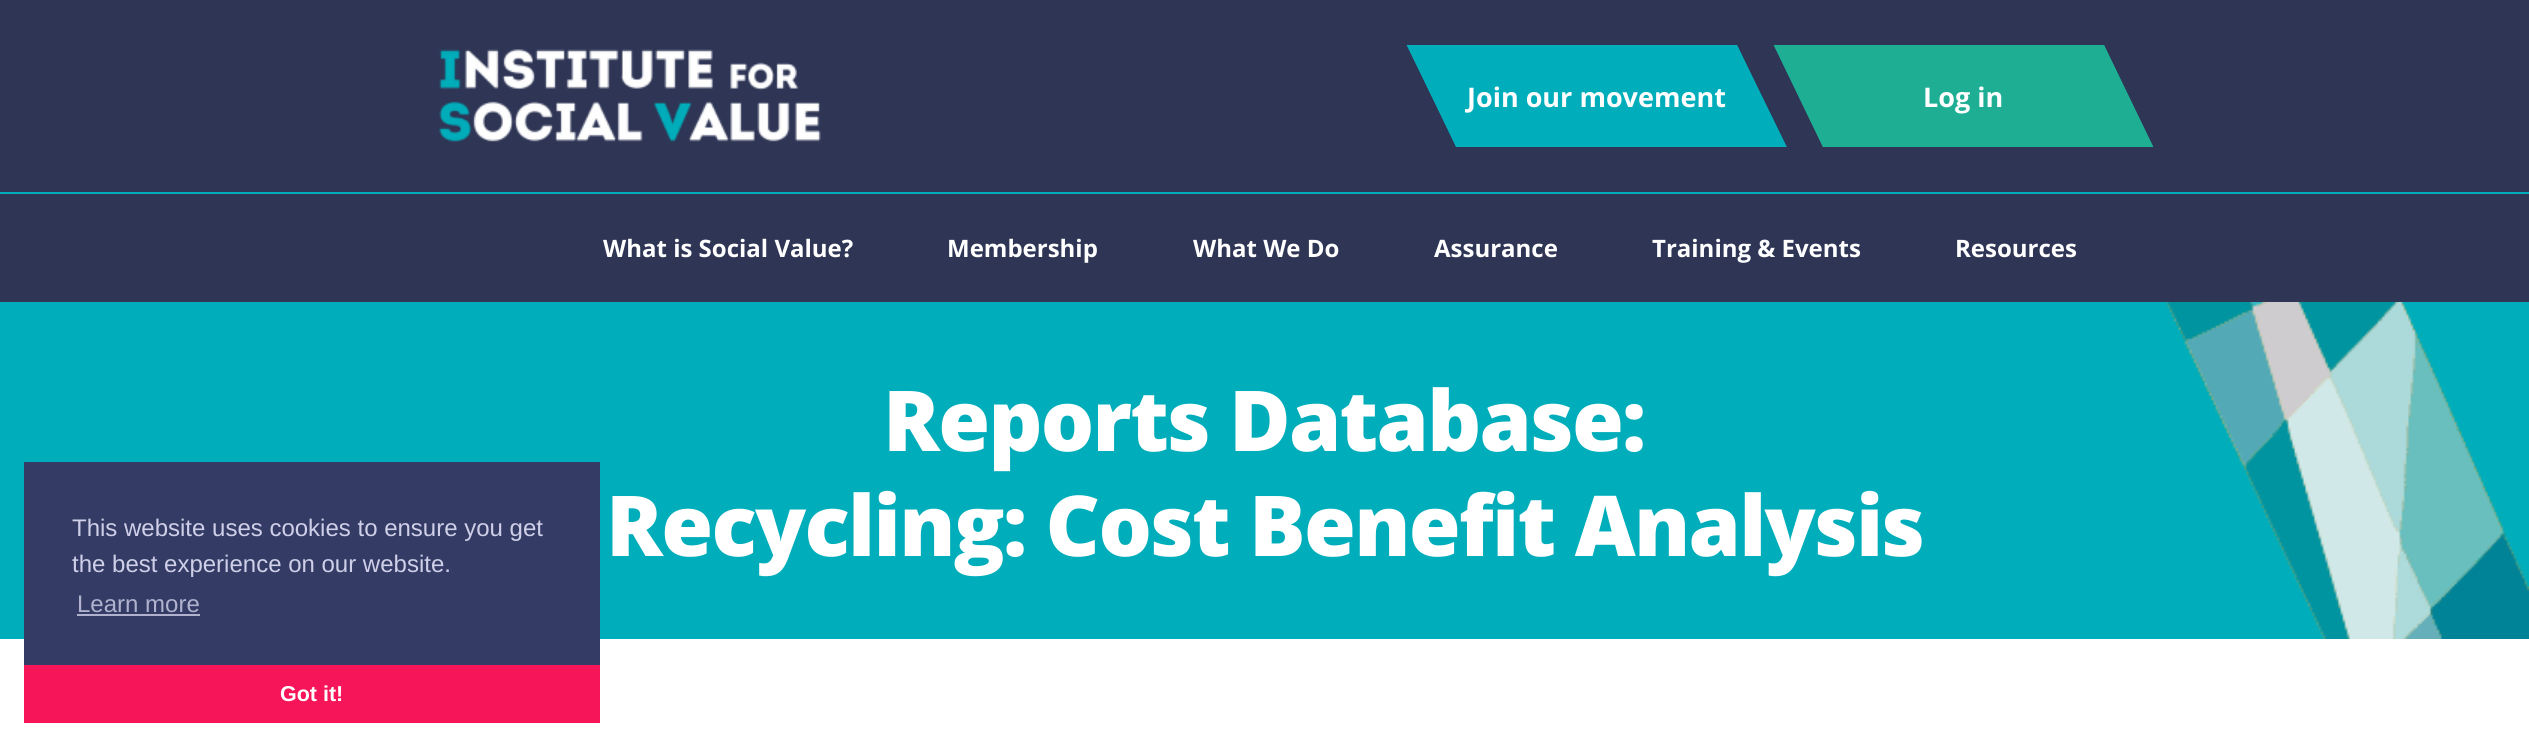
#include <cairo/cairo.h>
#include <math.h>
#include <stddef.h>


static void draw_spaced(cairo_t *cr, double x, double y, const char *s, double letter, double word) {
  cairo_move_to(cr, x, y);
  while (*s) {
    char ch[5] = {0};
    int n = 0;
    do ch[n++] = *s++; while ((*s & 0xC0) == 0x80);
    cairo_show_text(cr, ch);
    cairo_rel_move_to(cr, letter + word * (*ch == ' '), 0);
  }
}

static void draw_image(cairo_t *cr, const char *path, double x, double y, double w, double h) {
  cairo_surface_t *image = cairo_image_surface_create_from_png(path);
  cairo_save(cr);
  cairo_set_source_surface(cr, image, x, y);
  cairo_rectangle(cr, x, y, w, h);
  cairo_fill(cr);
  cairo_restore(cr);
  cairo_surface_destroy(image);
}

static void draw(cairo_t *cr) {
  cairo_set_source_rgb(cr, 1, 1, 1);
  cairo_paint(cr);
  cairo_set_source_rgb(cr, 46 / 255.0, 53 / 255.0, 85 / 255.0);
  cairo_rectangle(cr, 0, 0, 2529, 192);
  cairo_fill(cr);
  cairo_set_source_rgb(cr, 0, 173 / 255.0, 186 / 255.0);
  cairo_rectangle(cr, 0, 192, 2529, 2);
  cairo_fill(cr);
  draw_image(cr, "images/1.png", 439, 49, 382, 93);
  cairo_new_path(cr);
  cairo_move_to(cr, 1407, 45);
  cairo_line_to(cr, 1737, 45);
  cairo_line_to(cr, 1786, 147);
  cairo_line_to(cr, 1456, 147);
  cairo_close_path(cr);
  cairo_fill(cr);
  cairo_new_path(cr);
  cairo_move_to(cr, 1409, 46.5);
  cairo_line_to(cr, 1736, 46.5);
  cairo_line_to(cr, 1784.5, 145.5);
  cairo_line_to(cr, 1457.5, 145.5);
  cairo_close_path(cr);
  cairo_set_line_width(cr, 3);
  cairo_stroke(cr);
  cairo_set_source_rgb(cr, 30 / 255.0, 174 / 255.0, 148 / 255.0);
  cairo_new_path(cr);
  cairo_move_to(cr, 1774, 45);
  cairo_line_to(cr, 2104, 45);
  cairo_line_to(cr, 2153, 147);
  cairo_line_to(cr, 1823, 147);
  cairo_close_path(cr);
  cairo_fill(cr);
  cairo_new_path(cr);
  cairo_move_to(cr, 1776, 46.5);
  cairo_line_to(cr, 2103, 46.5);
  cairo_line_to(cr, 2151, 145.5);
  cairo_line_to(cr, 1824, 145.5);
  cairo_close_path(cr);
  cairo_stroke(cr);
  cairo_set_source_rgb(cr, 46 / 255.0, 53 / 255.0, 85 / 255.0);
  cairo_rectangle(cr, 0, 194, 2529, 108);
  cairo_fill(cr);
  cairo_set_source_rgb(cr, 0, 173 / 255.0, 186 / 255.0);
  cairo_rectangle(cr, 0, 302, 2529, 337);
  cairo_fill(cr);
  draw_image(cr, "images/2.png", 2165, 302, 364, 337);
  cairo_set_source_rgb(cr, 52 / 255.0, 60 / 255.0, 102 / 255.0);
  cairo_rectangle(cr, 24, 462, 576, 203);
  cairo_fill(cr);
  cairo_set_source_rgb(cr, 176 / 255.0, 178 / 255.0, 206 / 255.0);
  cairo_rectangle(cr, 77, 614, 123, 2);
  cairo_fill(cr);
  cairo_set_source_rgb(cr, 247 / 255.0, 21 / 255.0, 89 / 255.0);
  cairo_rectangle(cr, 24, 665, 576, 58);
  cairo_fill(cr);
  cairo_select_font_face(cr, "Open Sans", CAIRO_FONT_SLANT_NORMAL, CAIRO_FONT_WEIGHT_BOLD);
  cairo_set_font_size(cr, 27);
  cairo_set_source_rgb(cr, 1, 1, 1);
  cairo_move_to(cr, 1467, 107);
  cairo_show_text(cr, "Join our movement");
  cairo_move_to(cr, 1923, 107);
  cairo_show_text(cr, "Log in");
  cairo_set_font_size(cr, 24);
  cairo_move_to(cr, 603, 257);
  cairo_show_text(cr, "What is Social Value?");
  cairo_move_to(cr, 947, 257);
  cairo_show_text(cr, "Membership");
  cairo_move_to(cr, 1193, 257);
  cairo_show_text(cr, "What We Do");
  cairo_move_to(cr, 1434, 257);
  cairo_show_text(cr, "Assurance");
  cairo_move_to(cr, 1652, 257);
  cairo_show_text(cr, "Training & Events");
  cairo_move_to(cr, 1955, 257);
  cairo_show_text(cr, "Resources");
  cairo_select_font_face(cr, "Open Sans ExtraBold", CAIRO_FONT_SLANT_NORMAL, CAIRO_FONT_WEIGHT_NORMAL);
  cairo_set_font_size(cr, 84);
  draw_spaced(cr, 883, 451, "Reports Database:", -1.7, 0);
  draw_spaced(cr, 606, 556, "Recycling: Cost Benefit Analysis", -1.7, 0);
  cairo_select_font_face(cr, "Liberation Sans", CAIRO_FONT_SLANT_NORMAL, CAIRO_FONT_WEIGHT_NORMAL);
  cairo_set_font_size(cr, 24);
  cairo_set_source_rgb(cr, 207 / 255.0, 207 / 255.0, 232 / 255.0);
  cairo_move_to(cr, 72, 536);
  cairo_show_text(cr, "This website uses cookies to ensure you get");
  cairo_move_to(cr, 72, 572);
  cairo_show_text(cr, "the best experience on our website.");
  cairo_set_source_rgb(cr, 176 / 255.0, 178 / 255.0, 206 / 255.0);
  cairo_move_to(cr, 77, 612);
  cairo_show_text(cr, "Learn more");
  cairo_select_font_face(cr, "Liberation Sans", CAIRO_FONT_SLANT_NORMAL, CAIRO_FONT_WEIGHT_BOLD);
  cairo_set_font_size(cr, 21.5);
  cairo_set_source_rgb(cr, 1, 1, 1);
  cairo_move_to(cr, 280, 701);
  cairo_show_text(cr, "Got it!");
}

int main(void) {
  cairo_surface_t *surface = cairo_image_surface_create(CAIRO_FORMAT_RGB24, 2529, 746);
  cairo_t *cr = cairo_create(surface);
  cairo_font_options_t *options = cairo_font_options_create();
  cairo_font_options_set_hint_metrics(options, CAIRO_HINT_METRICS_OFF);
  cairo_font_options_set_hint_style(options, CAIRO_HINT_STYLE_NONE);
  cairo_set_font_options(cr, options);
  cairo_set_miter_limit(cr, 4);
  draw(cr);
  cairo_surface_write_to_png(surface, "out.png");
  cairo_font_options_destroy(options);
  cairo_destroy(cr);
  cairo_surface_destroy(surface);
  return 0;
}
